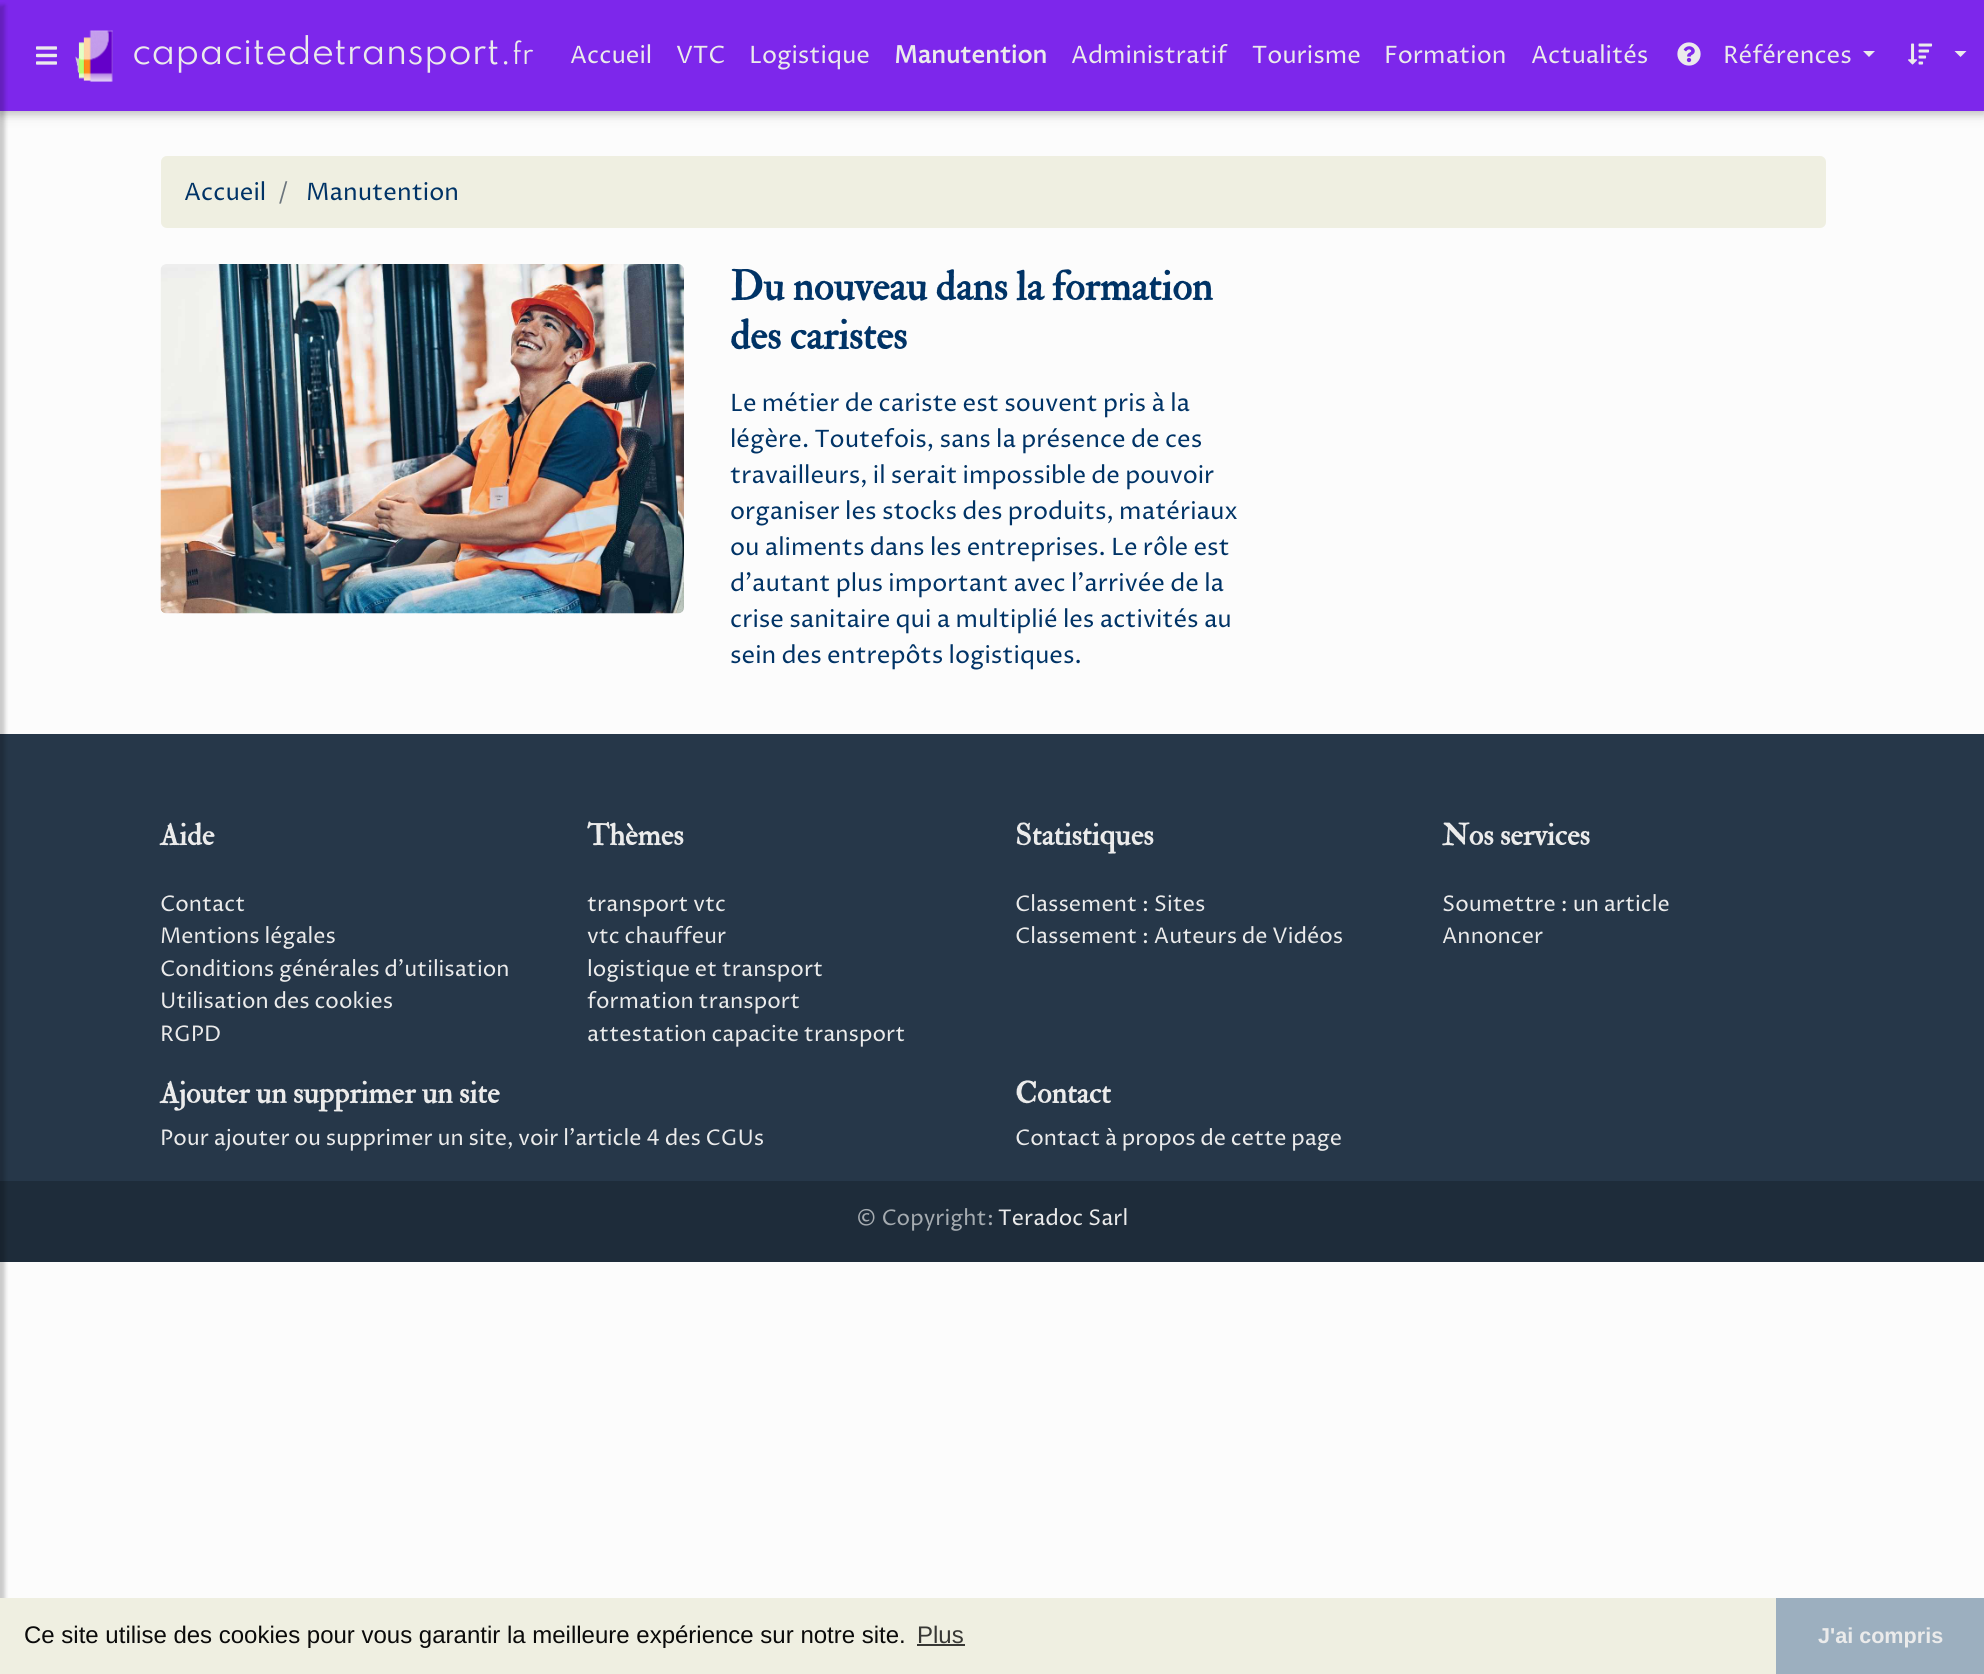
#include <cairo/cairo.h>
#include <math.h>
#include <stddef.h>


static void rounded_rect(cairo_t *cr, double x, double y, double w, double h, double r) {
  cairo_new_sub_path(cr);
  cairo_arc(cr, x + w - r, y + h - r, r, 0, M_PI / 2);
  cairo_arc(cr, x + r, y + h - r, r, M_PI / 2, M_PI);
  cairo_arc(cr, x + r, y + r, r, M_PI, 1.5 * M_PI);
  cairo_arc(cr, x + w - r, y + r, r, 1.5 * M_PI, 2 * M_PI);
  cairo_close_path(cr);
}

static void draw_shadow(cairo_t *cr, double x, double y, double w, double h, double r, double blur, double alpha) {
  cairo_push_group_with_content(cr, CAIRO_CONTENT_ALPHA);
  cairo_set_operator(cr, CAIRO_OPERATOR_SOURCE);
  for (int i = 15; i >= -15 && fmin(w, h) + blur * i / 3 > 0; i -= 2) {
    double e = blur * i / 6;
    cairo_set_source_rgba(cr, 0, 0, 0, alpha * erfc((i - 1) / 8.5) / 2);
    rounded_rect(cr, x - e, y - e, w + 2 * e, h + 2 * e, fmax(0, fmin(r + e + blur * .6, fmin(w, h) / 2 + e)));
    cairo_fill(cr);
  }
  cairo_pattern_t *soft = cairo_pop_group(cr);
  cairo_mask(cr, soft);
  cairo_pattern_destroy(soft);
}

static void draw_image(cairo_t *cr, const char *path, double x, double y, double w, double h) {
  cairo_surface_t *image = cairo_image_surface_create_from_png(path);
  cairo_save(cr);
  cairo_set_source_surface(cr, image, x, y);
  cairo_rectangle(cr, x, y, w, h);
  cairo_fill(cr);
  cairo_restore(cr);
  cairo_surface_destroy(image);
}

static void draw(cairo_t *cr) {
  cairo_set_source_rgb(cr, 252 / 255.0, 252 / 255.0, 252 / 255.0);
  cairo_paint(cr);
  cairo_set_source_rgb(cr, 0, 0, 0);
  draw_shadow(cr, 0, 3, 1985, 111, 0, 7.5, 0.12);
  draw_shadow(cr, 0, 3, 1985, 111, 0, 4, 0.16);
  cairo_set_source_rgb(cr, 125 / 255.0, 39 / 255.0, 235 / 255.0);
  cairo_rectangle(cr, 0, 0, 1984, 111);
  cairo_fill(cr);
  cairo_set_source_rgb(cr, 38 / 255.0, 55 / 255.0, 73 / 255.0);
  cairo_rectangle(cr, 0, 734, 1984, 447);
  cairo_fill(cr);
  cairo_set_source_rgb(cr, 30 / 255.0, 44 / 255.0, 58 / 255.0);
  cairo_rectangle(cr, 0, 1181, 1984, 81);
  cairo_fill(cr);
  cairo_set_source_rgb(cr, 0, 0, 0);
  draw_shadow(cr, -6, 5, 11, 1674, 0, 2, 0.2);
  draw_image(cr, "images/1.png", 36, 46, 21, 19);
  draw_image(cr, "images/2.png", 75, 30, 38, 52);
  draw_image(cr, "images/3.png", 1677, 42, 24, 24);
  cairo_set_source_rgb(cr, 235 / 255.0, 235 / 255.0, 235 / 255.0);
  cairo_new_path(cr);
  cairo_move_to(cr, 1863, 51);
  cairo_line_to(cr, 1875, 51);
  cairo_line_to(cr, 1869, 57);
  cairo_close_path(cr);
  cairo_fill(cr);
  draw_image(cr, "images/4.png", 1908, 43, 25, 22);
  cairo_new_path(cr);
  cairo_move_to(cr, 1954.5, 51);
  cairo_line_to(cr, 1966.5, 51);
  cairo_line_to(cr, 1960.5, 57);
  cairo_close_path(cr);
  cairo_fill(cr);
  cairo_set_source_rgb(cr, 239 / 255.0, 239 / 255.0, 225 / 255.0);
  rounded_rect(cr, 161, 156, 1665, 72, 6);
  cairo_fill(cr);
  draw_image(cr, "images/5.png", 160, 264, 524, 350);
  cairo_rectangle(cr, 0, 1598, 1776, 76);
  cairo_fill(cr);
  cairo_set_source_rgb(cr, 56 / 255.0, 56 / 255.0, 53 / 255.0);
  cairo_rectangle(cr, 917, 1644, 48, 2);
  cairo_fill(cr);
  cairo_set_source_rgb(cr, 156 / 255.0, 175 / 255.0, 191 / 255.0);
  cairo_rectangle(cr, 1776, 1598, 208, 76);
  cairo_fill(cr);
  cairo_select_font_face(cr, "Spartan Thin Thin", CAIRO_FONT_SLANT_NORMAL, CAIRO_FONT_WEIGHT_NORMAL);
  cairo_set_font_size(cr, 33.6);
  cairo_set_source_rgb(cr, 235 / 255.0, 235 / 255.0, 235 / 255.0);
  cairo_move_to(cr, 132, 64);
  cairo_show_text(cr, "capacitedetransport.");
  cairo_set_font_size(cr, 27);
  cairo_move_to(cr, 512, 64);
  cairo_show_text(cr, "fr");
  cairo_select_font_face(cr, "Proza Libre", CAIRO_FONT_SLANT_NORMAL, CAIRO_FONT_WEIGHT_NORMAL);
  cairo_set_font_size(cr, 24);
  cairo_move_to(cr, 570, 63);
  cairo_show_text(cr, "Accueil");
  cairo_move_to(cr, 676, 63);
  cairo_show_text(cr, "VTC");
  cairo_move_to(cr, 749, 63);
  cairo_show_text(cr, "Logistique");
  cairo_select_font_face(cr, "Proza Libre", CAIRO_FONT_SLANT_NORMAL, CAIRO_FONT_WEIGHT_BOLD);
  cairo_move_to(cr, 894, 63);
  cairo_show_text(cr, "Manutention");
  cairo_select_font_face(cr, "Proza Libre", CAIRO_FONT_SLANT_NORMAL, CAIRO_FONT_WEIGHT_NORMAL);
  cairo_move_to(cr, 1071, 63);
  cairo_show_text(cr, "Administratif");
  cairo_move_to(cr, 1252, 63);
  cairo_show_text(cr, "Tourisme");
  cairo_move_to(cr, 1384, 63);
  cairo_show_text(cr, "Formation");
  cairo_move_to(cr, 1531, 63);
  cairo_show_text(cr, "Actualités");
  cairo_move_to(cr, 1723, 63);
  cairo_show_text(cr, "Références");
  cairo_set_source_rgb(cr, 0, 51 / 255.0, 102 / 255.0);
  cairo_move_to(cr, 184, 200);
  cairo_show_text(cr, "Accueil");
  cairo_set_source_rgb(cr, 108 / 255.0, 117 / 255.0, 125 / 255.0);
  cairo_move_to(cr, 278, 200);
  cairo_show_text(cr, "/");
  cairo_set_source_rgb(cr, 0, 51 / 255.0, 102 / 255.0);
  cairo_move_to(cr, 306, 200);
  cairo_show_text(cr, "Manutention");
  cairo_select_font_face(cr, "IM FELL Double Pica", CAIRO_FONT_SLANT_NORMAL, CAIRO_FONT_WEIGHT_BOLD);
  cairo_set_font_size(cr, 40.75);
  cairo_move_to(cr, 730, 300);
  cairo_show_text(cr, "Du nouveau dans la formation");
  cairo_move_to(cr, 730, 349);
  cairo_show_text(cr, "des caristes");
  cairo_select_font_face(cr, "Proza Libre", CAIRO_FONT_SLANT_NORMAL, CAIRO_FONT_WEIGHT_NORMAL);
  cairo_set_font_size(cr, 24);
  cairo_move_to(cr, 730, 411);
  cairo_show_text(cr, "Le métier de cariste est souvent pris à la");
  cairo_move_to(cr, 730, 447);
  cairo_show_text(cr, "légère. Toutefois, sans la présence de ces");
  cairo_move_to(cr, 730, 483);
  cairo_show_text(cr, "travailleurs, il serait impossible de pouvoir");
  cairo_move_to(cr, 730, 519);
  cairo_show_text(cr, "organiser les stocks des produits, matériaux");
  cairo_move_to(cr, 730, 555);
  cairo_show_text(cr, "ou aliments dans les entreprises. Le rôle est");
  cairo_move_to(cr, 730, 591);
  cairo_show_text(cr, "d’autant plus important avec l’arrivée de la");
  cairo_move_to(cr, 730, 627);
  cairo_show_text(cr, "crise sanitaire qui a multiplié les activités au");
  cairo_move_to(cr, 730, 663);
  cairo_show_text(cr, "sein des entrepôts logistiques.");
  cairo_select_font_face(cr, "IM FELL Double Pica", CAIRO_FONT_SLANT_NORMAL, CAIRO_FONT_WEIGHT_BOLD);
  cairo_set_font_size(cr, 30);
  cairo_set_source_rgb(cr, 235 / 255.0, 235 / 255.0, 235 / 255.0);
  cairo_move_to(cr, 160, 845);
  cairo_show_text(cr, "Aide");
  cairo_select_font_face(cr, "Proza Libre", CAIRO_FONT_SLANT_NORMAL, CAIRO_FONT_WEIGHT_NORMAL);
  cairo_set_font_size(cr, 21.6);
  cairo_move_to(cr, 160, 911);
  cairo_show_text(cr, "Contact");
  cairo_move_to(cr, 160, 943);
  cairo_show_text(cr, "Mentions légales");
  cairo_move_to(cr, 160, 976);
  cairo_show_text(cr, "Conditions générales d'utilisation");
  cairo_move_to(cr, 160, 1008);
  cairo_show_text(cr, "Utilisation des cookies");
  cairo_move_to(cr, 160, 1041);
  cairo_show_text(cr, "RGPD");
  cairo_select_font_face(cr, "IM FELL Double Pica", CAIRO_FONT_SLANT_NORMAL, CAIRO_FONT_WEIGHT_BOLD);
  cairo_set_font_size(cr, 30);
  cairo_move_to(cr, 587, 845);
  cairo_show_text(cr, "Thèmes");
  cairo_select_font_face(cr, "Proza Libre", CAIRO_FONT_SLANT_NORMAL, CAIRO_FONT_WEIGHT_NORMAL);
  cairo_set_font_size(cr, 21.6);
  cairo_move_to(cr, 587, 911);
  cairo_show_text(cr, "transport vtc");
  cairo_move_to(cr, 587, 943);
  cairo_show_text(cr, "vtc chauffeur");
  cairo_move_to(cr, 587, 976);
  cairo_show_text(cr, "logistique et transport");
  cairo_move_to(cr, 587, 1008);
  cairo_show_text(cr, "formation transport");
  cairo_move_to(cr, 587, 1041);
  cairo_show_text(cr, "attestation capacite transport");
  cairo_select_font_face(cr, "IM FELL Double Pica", CAIRO_FONT_SLANT_NORMAL, CAIRO_FONT_WEIGHT_BOLD);
  cairo_set_font_size(cr, 30);
  cairo_move_to(cr, 1015, 845);
  cairo_show_text(cr, "Statistiques");
  cairo_select_font_face(cr, "Proza Libre", CAIRO_FONT_SLANT_NORMAL, CAIRO_FONT_WEIGHT_NORMAL);
  cairo_set_font_size(cr, 21.6);
  cairo_move_to(cr, 1015, 911);
  cairo_show_text(cr, "Classement : Sites");
  cairo_move_to(cr, 1015, 943);
  cairo_show_text(cr, "Classement : Auteurs de Vidéos");
  cairo_select_font_face(cr, "IM FELL Double Pica", CAIRO_FONT_SLANT_NORMAL, CAIRO_FONT_WEIGHT_BOLD);
  cairo_set_font_size(cr, 30);
  cairo_move_to(cr, 1442, 845);
  cairo_show_text(cr, "Nos services");
  cairo_select_font_face(cr, "Proza Libre", CAIRO_FONT_SLANT_NORMAL, CAIRO_FONT_WEIGHT_NORMAL);
  cairo_set_font_size(cr, 21.6);
  cairo_move_to(cr, 1442, 911);
  cairo_show_text(cr, "Soumettre : un article");
  cairo_move_to(cr, 1442, 943);
  cairo_show_text(cr, "Annoncer");
  cairo_select_font_face(cr, "IM FELL Double Pica", CAIRO_FONT_SLANT_NORMAL, CAIRO_FONT_WEIGHT_BOLD);
  cairo_set_font_size(cr, 30);
  cairo_move_to(cr, 160, 1103);
  cairo_show_text(cr, "Ajouter un supprimer un site");
  cairo_select_font_face(cr, "Proza Libre", CAIRO_FONT_SLANT_NORMAL, CAIRO_FONT_WEIGHT_NORMAL);
  cairo_set_font_size(cr, 21.6);
  cairo_move_to(cr, 160, 1145);
  cairo_show_text(cr, "Pour ajouter ou supprimer un site, voir l'article 4 des CGUs");
  cairo_select_font_face(cr, "IM FELL Double Pica", CAIRO_FONT_SLANT_NORMAL, CAIRO_FONT_WEIGHT_BOLD);
  cairo_set_font_size(cr, 30);
  cairo_move_to(cr, 1015, 1103);
  cairo_show_text(cr, "Contact");
  cairo_select_font_face(cr, "Proza Libre", CAIRO_FONT_SLANT_NORMAL, CAIRO_FONT_WEIGHT_NORMAL);
  cairo_set_font_size(cr, 21.6);
  cairo_move_to(cr, 1015, 1145);
  cairo_show_text(cr, "Contact à propos de cette page");
  cairo_set_source_rgb(cr, 165 / 255.0, 171 / 255.0, 176 / 255.0);
  cairo_move_to(cr, 856, 1225);
  cairo_show_text(cr, "© Copyright:");
  cairo_set_source_rgb(cr, 235 / 255.0, 235 / 255.0, 235 / 255.0);
  cairo_move_to(cr, 998, 1225);
  cairo_show_text(cr, "Teradoc Sarl");
  cairo_select_font_face(cr, "Liberation Sans", CAIRO_FONT_SLANT_NORMAL, CAIRO_FONT_WEIGHT_NORMAL);
  cairo_set_font_size(cr, 24);
  cairo_set_source_rgb(cr, 10 / 255.0, 10 / 255.0, 10 / 255.0);
  cairo_move_to(cr, 24, 1643);
  cairo_show_text(cr, "Ce site utilise des cookies pour vous garantir la meilleure expérience sur notre site.");
  cairo_set_source_rgb(cr, 56 / 255.0, 56 / 255.0, 53 / 255.0);
  cairo_move_to(cr, 917, 1643);
  cairo_show_text(cr, "Plus");
  cairo_select_font_face(cr, "Liberation Sans", CAIRO_FONT_SLANT_NORMAL, CAIRO_FONT_WEIGHT_BOLD);
  cairo_set_font_size(cr, 21.6);
  cairo_set_source_rgb(cr, 235 / 255.0, 235 / 255.0, 235 / 255.0);
  cairo_move_to(cr, 1818, 1643);
  cairo_show_text(cr, "J'ai compris");
}

int main(void) {
  cairo_surface_t *surface = cairo_image_surface_create(CAIRO_FORMAT_RGB24, 1984, 1674);
  cairo_t *cr = cairo_create(surface);
  cairo_font_options_t *options = cairo_font_options_create();
  cairo_font_options_set_hint_metrics(options, CAIRO_HINT_METRICS_OFF);
  cairo_font_options_set_hint_style(options, CAIRO_HINT_STYLE_NONE);
  cairo_set_font_options(cr, options);
  cairo_set_miter_limit(cr, 4);
  draw(cr);
  cairo_surface_write_to_png(surface, "out.png");
  cairo_font_options_destroy(options);
  cairo_destroy(cr);
  cairo_surface_destroy(surface);
  return 0;
}
